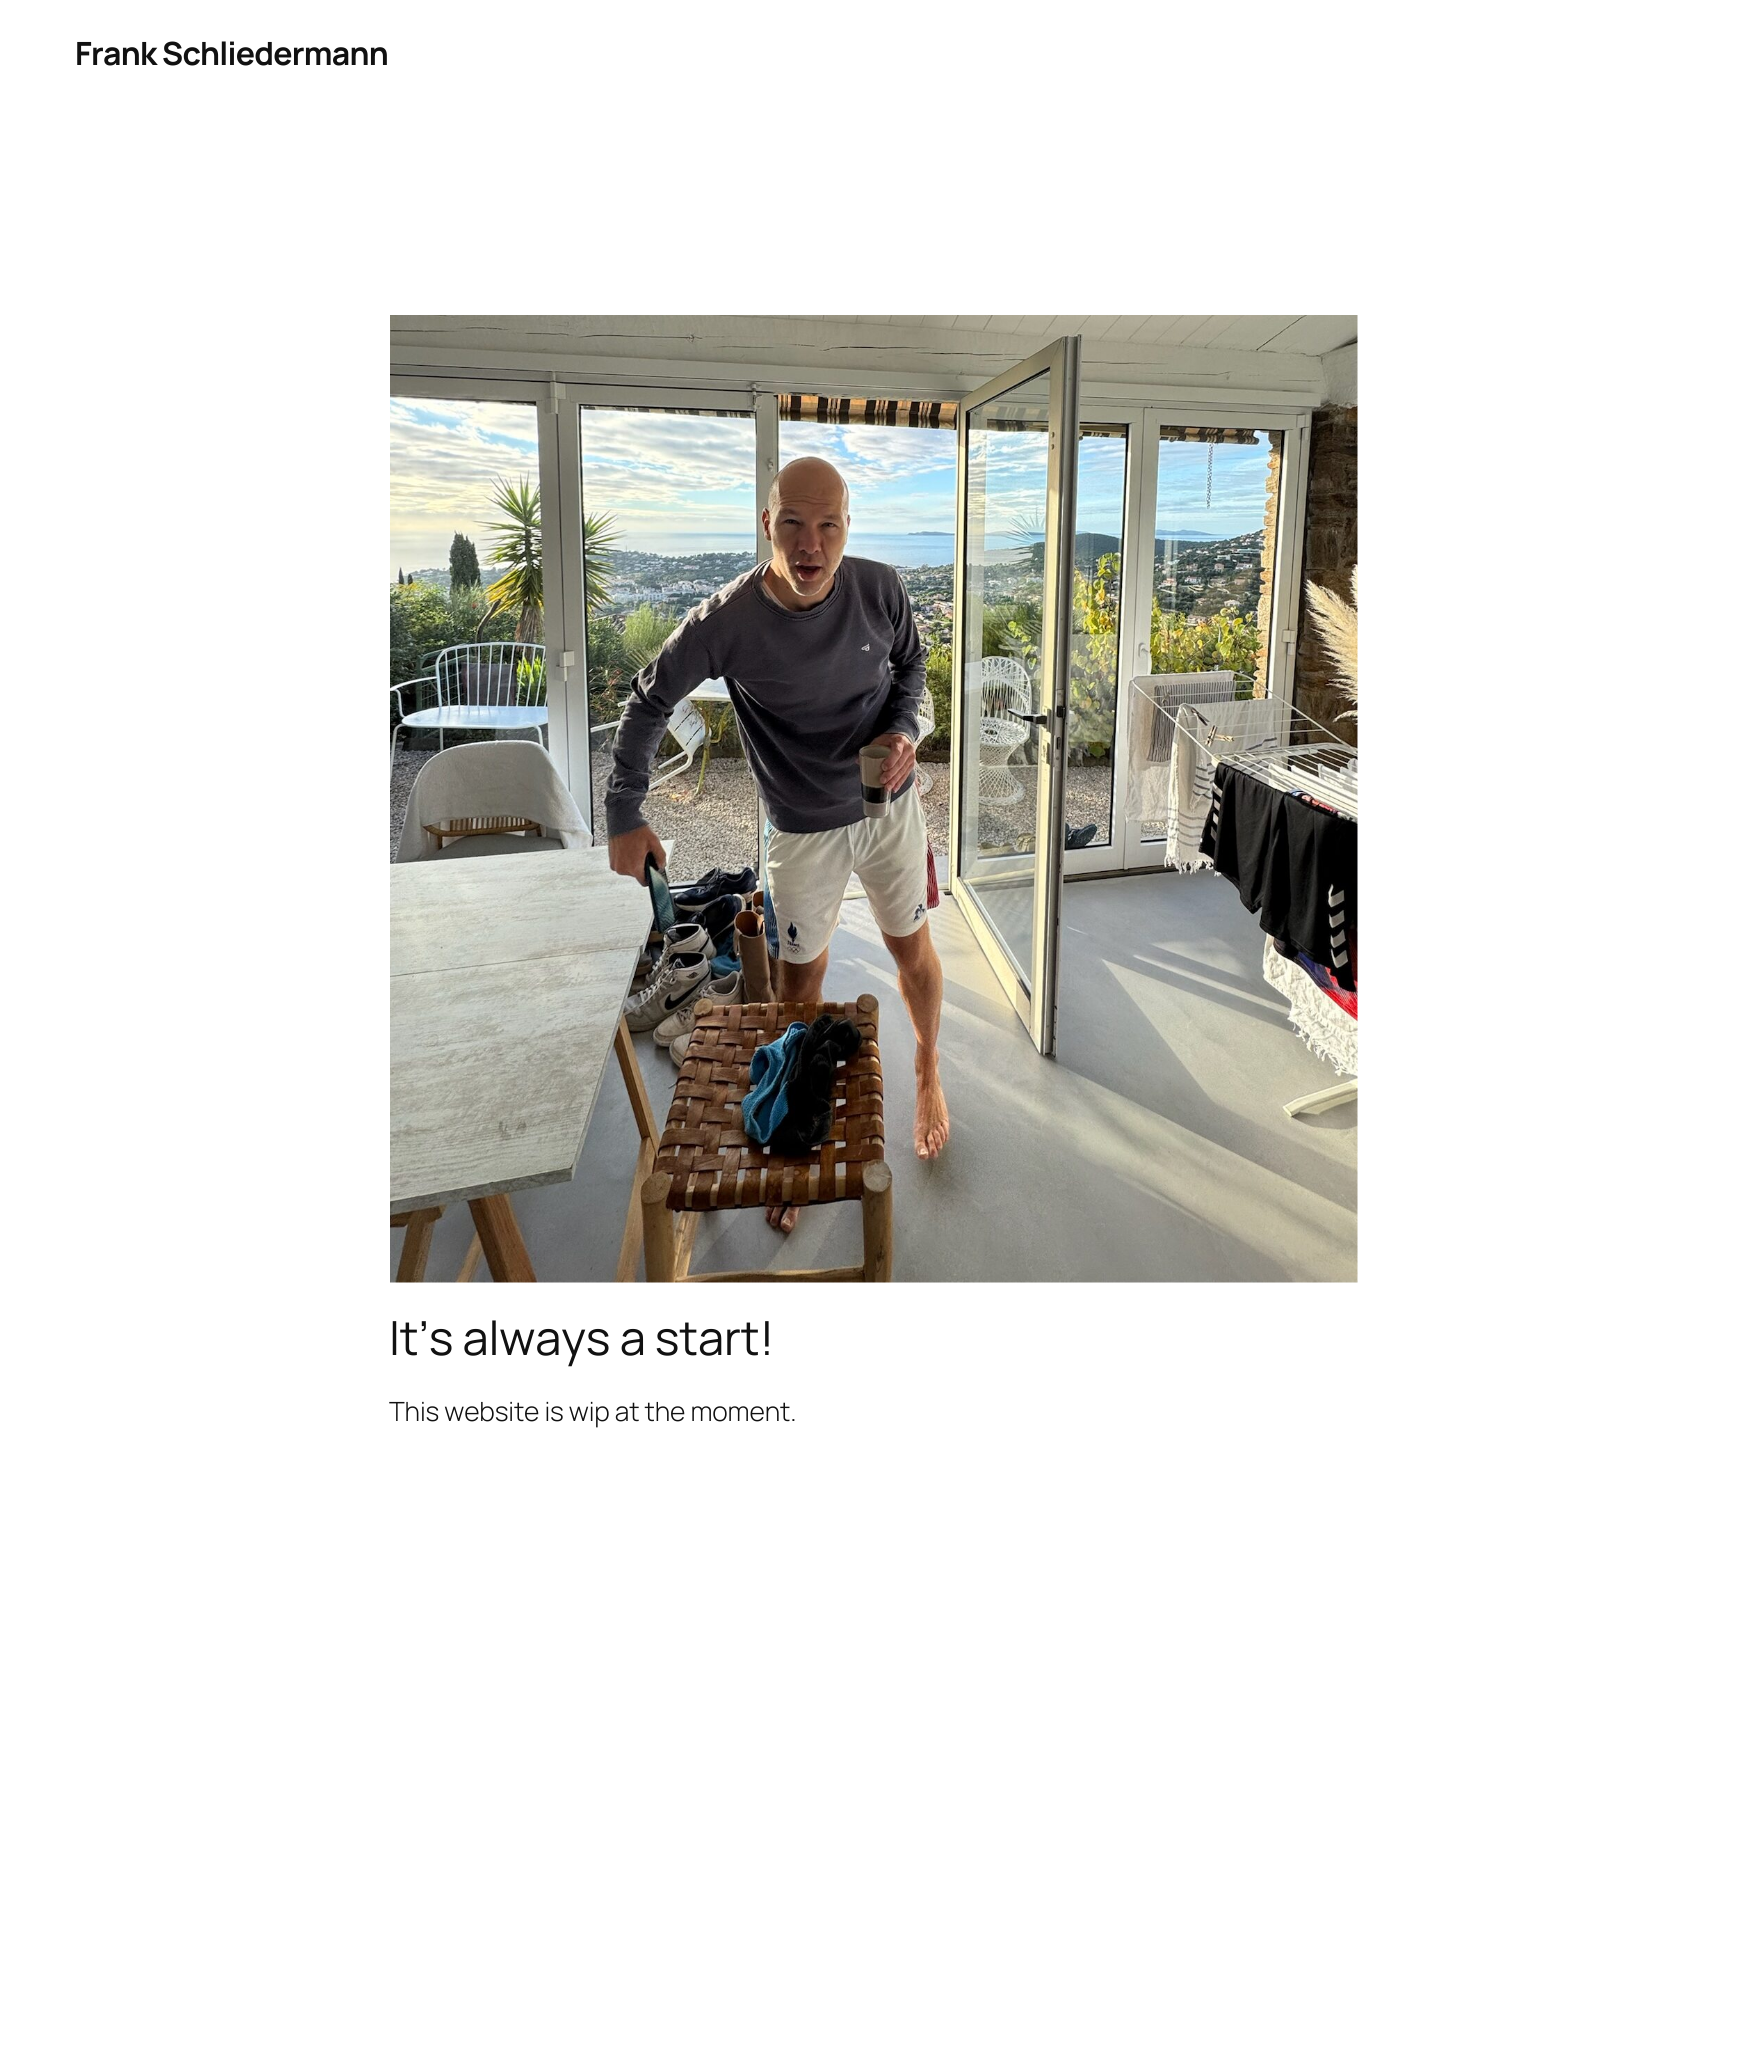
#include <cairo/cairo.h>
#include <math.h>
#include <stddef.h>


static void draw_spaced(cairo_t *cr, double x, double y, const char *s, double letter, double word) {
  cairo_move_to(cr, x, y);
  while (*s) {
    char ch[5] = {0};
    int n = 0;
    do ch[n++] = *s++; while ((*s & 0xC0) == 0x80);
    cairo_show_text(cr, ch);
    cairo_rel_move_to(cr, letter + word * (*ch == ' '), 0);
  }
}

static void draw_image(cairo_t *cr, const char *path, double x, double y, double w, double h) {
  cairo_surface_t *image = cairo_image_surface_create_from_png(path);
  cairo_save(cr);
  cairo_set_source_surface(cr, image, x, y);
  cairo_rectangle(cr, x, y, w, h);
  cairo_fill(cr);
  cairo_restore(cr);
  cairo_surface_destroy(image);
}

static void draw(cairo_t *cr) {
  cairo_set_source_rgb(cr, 1, 1, 1);
  cairo_paint(cr);
  draw_image(cr, "images/1.png", 390, 315, 968, 968);
  cairo_select_font_face(cr, "Manrope", CAIRO_FONT_SLANT_NORMAL, CAIRO_FONT_WEIGHT_BOLD);
  cairo_set_font_size(cr, 32);
  cairo_set_source_rgb(cr, 17 / 255.0, 17 / 255.0, 17 / 255.0);
  draw_spaced(cr, 75, 65, "Frank Schliedermann", -0.75, 0);
  cairo_select_font_face(cr, "Manrope", CAIRO_FONT_SLANT_NORMAL, CAIRO_FONT_WEIGHT_NORMAL);
  cairo_set_font_size(cr, 47);
  draw_spaced(cr, 389, 1355, "It’s always a start!", -0.15, 0);
  cairo_select_font_face(cr, "Manrope Light", CAIRO_FONT_SLANT_NORMAL, CAIRO_FONT_WEIGHT_NORMAL);
  cairo_set_font_size(cr, 26.5);
  draw_spaced(cr, 389, 1421, "This website is wip at the moment.", -0.15, 0);
}

int main(void) {
  cairo_surface_t *surface = cairo_image_surface_create(CAIRO_FORMAT_RGB24, 1746, 2067);
  cairo_t *cr = cairo_create(surface);
  cairo_font_options_t *options = cairo_font_options_create();
  cairo_font_options_set_hint_metrics(options, CAIRO_HINT_METRICS_OFF);
  cairo_font_options_set_hint_style(options, CAIRO_HINT_STYLE_NONE);
  cairo_set_font_options(cr, options);
  cairo_set_miter_limit(cr, 4);
  draw(cr);
  cairo_surface_write_to_png(surface, "out.png");
  cairo_font_options_destroy(options);
  cairo_destroy(cr);
  cairo_surface_destroy(surface);
  return 0;
}
